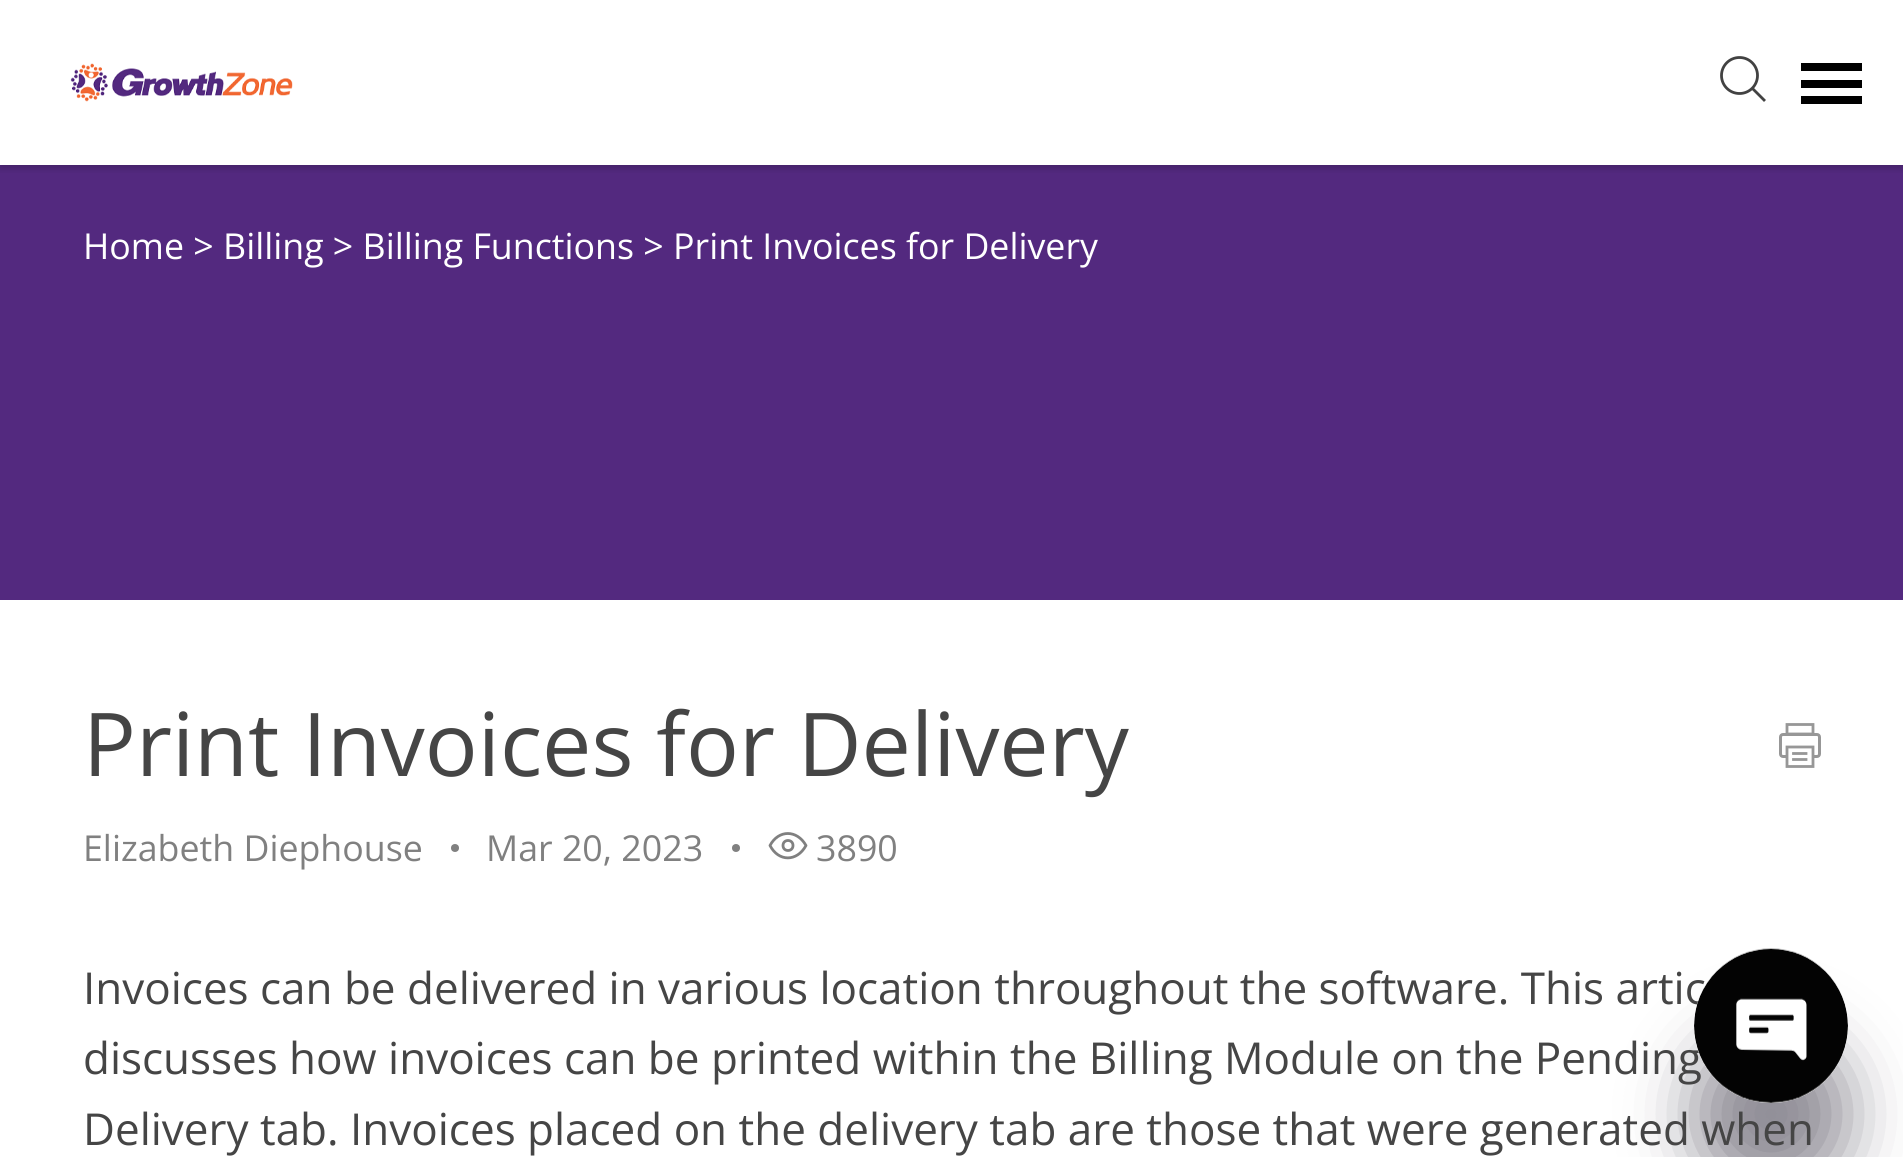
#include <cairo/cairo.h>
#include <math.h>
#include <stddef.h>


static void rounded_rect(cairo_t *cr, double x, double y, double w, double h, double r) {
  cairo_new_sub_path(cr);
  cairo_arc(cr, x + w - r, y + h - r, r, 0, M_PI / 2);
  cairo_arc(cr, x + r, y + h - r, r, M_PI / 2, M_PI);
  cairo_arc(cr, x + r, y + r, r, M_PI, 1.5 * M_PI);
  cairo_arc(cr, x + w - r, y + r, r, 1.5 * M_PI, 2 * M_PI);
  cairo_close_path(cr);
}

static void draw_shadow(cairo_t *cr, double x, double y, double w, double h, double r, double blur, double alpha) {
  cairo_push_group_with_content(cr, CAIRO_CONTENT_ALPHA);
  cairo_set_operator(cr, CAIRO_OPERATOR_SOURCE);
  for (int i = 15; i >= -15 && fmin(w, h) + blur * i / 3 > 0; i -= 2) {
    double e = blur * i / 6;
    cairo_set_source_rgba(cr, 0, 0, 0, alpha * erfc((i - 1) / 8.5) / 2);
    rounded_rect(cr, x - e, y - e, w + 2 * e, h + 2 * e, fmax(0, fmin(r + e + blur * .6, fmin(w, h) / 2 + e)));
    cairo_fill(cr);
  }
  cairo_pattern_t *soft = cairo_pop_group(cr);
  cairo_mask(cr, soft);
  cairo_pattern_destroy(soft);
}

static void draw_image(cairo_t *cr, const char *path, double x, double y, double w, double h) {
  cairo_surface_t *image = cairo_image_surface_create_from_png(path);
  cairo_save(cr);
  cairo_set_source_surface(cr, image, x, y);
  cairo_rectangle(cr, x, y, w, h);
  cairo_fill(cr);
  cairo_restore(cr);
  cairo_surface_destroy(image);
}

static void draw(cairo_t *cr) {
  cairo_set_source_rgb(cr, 1, 1, 1);
  cairo_paint(cr);
  cairo_set_source_rgb(cr, 83 / 255.0, 41 / 255.0, 127 / 255.0);
  cairo_rectangle(cr, 0, 165, 1903, 435);
  cairo_fill(cr);
  cairo_save(cr);
  cairo_rectangle(cr, 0, 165, 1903, 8);
  cairo_clip(cr);
  cairo_set_source_rgb(cr, 0, 0, 0);
  draw_shadow(cr, 0, 3, 1903, 165, 0, 4, 0.2);
  cairo_restore(cr);
  draw_image(cr, "images/1.png", 70, 63, 223, 39);
  cairo_arc(cr, 1739.5, 75.5, 18, 0, 2 * M_PI);
  cairo_set_source_rgb(cr, 66 / 255.0, 66 / 255.0, 66 / 255.0);
  cairo_set_line_width(cr, 2.8);
  cairo_stroke(cr);
  cairo_new_path(cr);
  cairo_move_to(cr, 1753.5, 89.5);
  cairo_line_to(cr, 1764, 100);
  cairo_set_line_cap(cr, CAIRO_LINE_CAP_SQUARE);
  cairo_stroke(cr);
  cairo_set_source_rgb(cr, 0, 0, 0);
  cairo_rectangle(cr, 1801, 63, 61, 8);
  cairo_fill(cr);
  cairo_rectangle(cr, 1801, 80, 61, 8);
  cairo_fill(cr);
  cairo_rectangle(cr, 1801, 96, 61, 8);
  cairo_fill(cr);
  cairo_new_path(cr);
  cairo_move_to(cr, 1787, 724.5);
  cairo_line_to(cr, 1813, 724.5);
  cairo_line_to(cr, 1813, 734);
  cairo_line_to(cr, 1787, 734);
  cairo_close_path(cr);
  cairo_set_source_rgb(cr, 151 / 255.0, 151 / 255.0, 151 / 255.0);
  cairo_set_line_cap(cr, CAIRO_LINE_CAP_BUTT);
  cairo_stroke(cr);
  rounded_rect(cr, 1780.5, 734.5, 39, 22, 2.5);
  cairo_set_line_width(cr, 3);
  cairo_stroke(cr);
  cairo_set_source_rgb(cr, 1, 1, 1);
  cairo_rectangle(cr, 1788, 755, 24, 3);
  cairo_fill(cr);
  cairo_new_path(cr);
  cairo_move_to(cr, 1787, 747);
  cairo_line_to(cr, 1813, 747);
  cairo_line_to(cr, 1813, 766.5);
  cairo_line_to(cr, 1787, 766.5);
  cairo_close_path(cr);
  cairo_set_source_rgb(cr, 151 / 255.0, 151 / 255.0, 151 / 255.0);
  cairo_set_line_width(cr, 2.8);
  cairo_stroke(cr);
  cairo_new_path(cr);
  cairo_move_to(cr, 1793.5, 753.5);
  cairo_line_to(cr, 1806, 753.5);
  cairo_move_to(cr, 1793.5, 759.5);
  cairo_line_to(cr, 1806, 759.5);
  cairo_set_line_cap(cr, CAIRO_LINE_CAP_SQUARE);
  cairo_stroke(cr);
  cairo_set_source_rgb(cr, 128 / 255.0, 128 / 255.0, 128 / 255.0);
  cairo_arc(cr, 455, 848, 4, 0, 2 * M_PI);
  cairo_fill(cr);
  cairo_arc(cr, 736, 848, 4, 0, 2 * M_PI);
  cairo_fill(cr);
  cairo_new_path(cr);
  cairo_move_to(cr, 770, 845.5);
  cairo_curve_to(cr, 778.5, 829.5, 797, 829.5, 806, 845.5);
  cairo_curve_to(cr, 797, 862, 778.5, 862, 770, 845.5);
  cairo_close_path(cr);
  cairo_set_line_cap(cr, CAIRO_LINE_CAP_ROUND);
  cairo_set_line_join(cr, CAIRO_LINE_JOIN_ROUND);
  cairo_stroke(cr);
  cairo_arc(cr, 788, 845.5, 5, 0, 2 * M_PI);
  cairo_set_line_cap(cr, CAIRO_LINE_CAP_BUTT);
  cairo_set_line_join(cr, CAIRO_LINE_JOIN_MITER);
  cairo_stroke(cr);
  cairo_set_source_rgb(cr, 35 / 255.0, 30 / 255.0, 48 / 255.0);
  draw_shadow(cr, 1694, 1037, 154, 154, 77, 33, 0.5);
  cairo_select_font_face(cr, "Open Sans", CAIRO_FONT_SLANT_NORMAL, CAIRO_FONT_WEIGHT_NORMAL);
  cairo_set_font_size(cr, 35.75);
  cairo_set_source_rgb(cr, 1, 1, 1);
  cairo_move_to(cr, 83, 259);
  cairo_show_text(cr, "Home > Billing > Billing Functions > Print Invoices for Delivery");
  cairo_set_font_size(cr, 88);
  cairo_set_source_rgb(cr, 69 / 255.0, 69 / 255.0, 69 / 255.0);
  cairo_move_to(cr, 83, 776);
  cairo_show_text(cr, "Print Invoices for Delivery");
  cairo_set_font_size(cr, 35.75);
  cairo_set_source_rgb(cr, 128 / 255.0, 128 / 255.0, 128 / 255.0);
  cairo_move_to(cr, 83, 861);
  cairo_show_text(cr, "Elizabeth Diephouse");
  cairo_move_to(cr, 486, 861);
  cairo_show_text(cr, "Mar 20, 2023");
  cairo_move_to(cr, 816, 861);
  cairo_show_text(cr, "3890");
  cairo_set_font_size(cr, 44);
  cairo_set_source_rgb(cr, 69 / 255.0, 69 / 255.0, 69 / 255.0);
  cairo_move_to(cr, 83, 1004);
  cairo_show_text(cr, "Invoices can be delivered in various location throughout the software. This artic");
  cairo_move_to(cr, 83, 1074);
  cairo_show_text(cr, "discusses how invoices can be printed within the Billing Module on the Pending");
  cairo_move_to(cr, 83, 1145);
  cairo_show_text(cr, "Delivery tab. Invoices placed on the delivery tab are those that were generated when");
  cairo_set_source_rgb(cr, 1, 1, 1);
  cairo_new_path(cr);
  cairo_arc(cr, 1771, 1026, 77, 0, 2 * M_PI);
  cairo_fill(cr);
  draw_image(cr, "images/2.png", 1694, 948, 154, 155);
}

int main(void) {
  cairo_surface_t *surface = cairo_image_surface_create(CAIRO_FORMAT_RGB24, 1903, 1157);
  cairo_t *cr = cairo_create(surface);
  cairo_font_options_t *options = cairo_font_options_create();
  cairo_font_options_set_hint_metrics(options, CAIRO_HINT_METRICS_OFF);
  cairo_font_options_set_hint_style(options, CAIRO_HINT_STYLE_NONE);
  cairo_set_font_options(cr, options);
  cairo_set_miter_limit(cr, 4);
  draw(cr);
  cairo_surface_write_to_png(surface, "out.png");
  cairo_font_options_destroy(options);
  cairo_destroy(cr);
  cairo_surface_destroy(surface);
  return 0;
}
